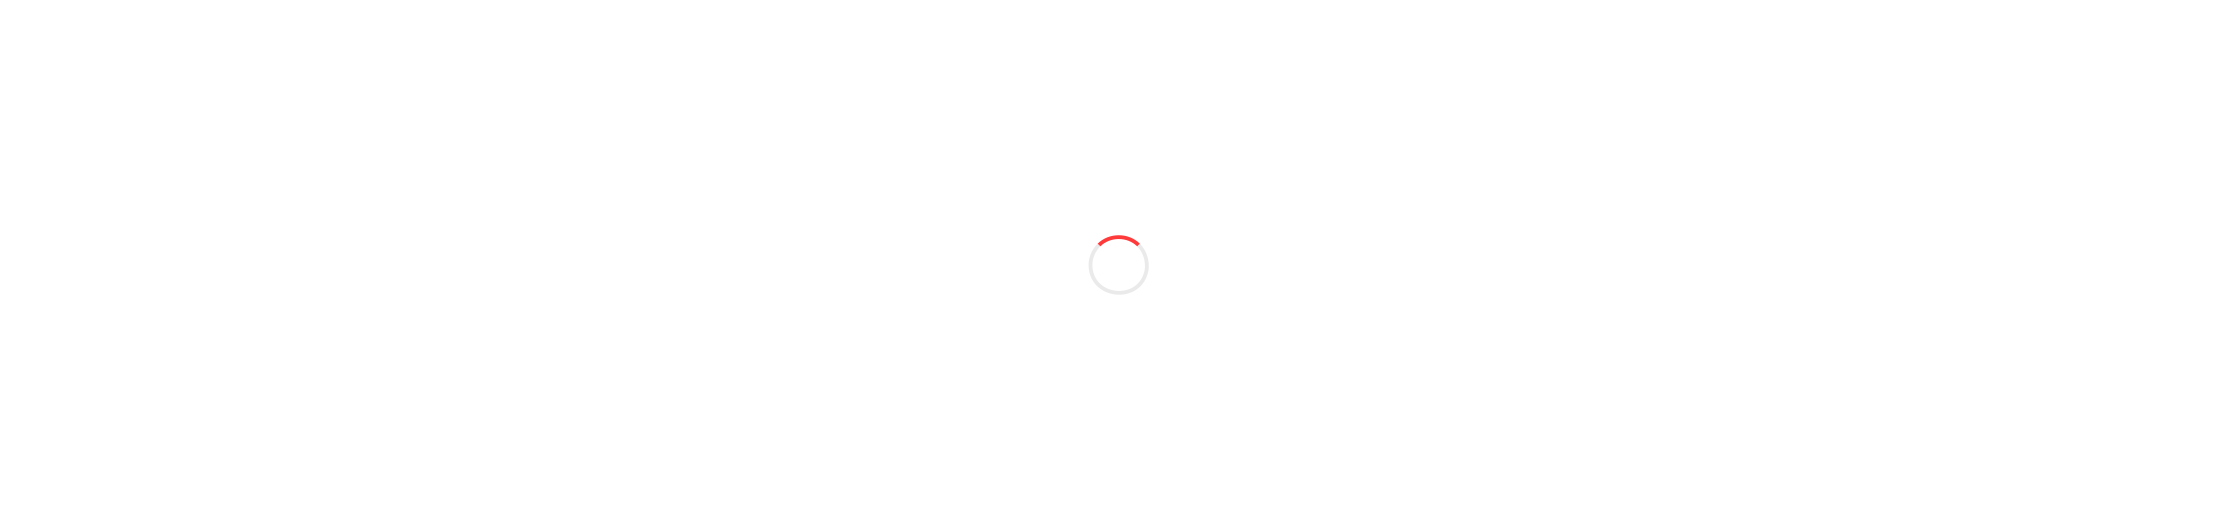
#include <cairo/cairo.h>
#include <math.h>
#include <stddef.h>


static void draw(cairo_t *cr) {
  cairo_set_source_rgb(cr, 1, 1, 1);
  cairo_paint(cr);
  cairo_new_path(cr);
  cairo_move_to(cr, 1099, 245);
  cairo_curve_to(cr, 1109.5, 234.5, 1128, 234.5, 1138.5, 245);
  cairo_set_source_rgb(cr, 1, 58 / 255.0, 58 / 255.0);
  cairo_set_line_width(cr, 3.8);
  cairo_stroke(cr);
  cairo_new_path(cr);
  cairo_move_to(cr, 1138.5, 245);
  cairo_curve_to(cr, 1145, 251.5, 1148, 261.5, 1146.5, 270.5);
  cairo_curve_to(cr, 1140, 303.5, 1090.5, 298.5, 1090.5, 265);
  cairo_curve_to(cr, 1090.5, 257.5, 1093.5, 250.5, 1099, 245);
  cairo_set_source_rgba(cr, 153 / 255.0, 153 / 255.0, 153 / 255.0, 0.2);
  cairo_stroke(cr);
}

int main(void) {
  cairo_surface_t *surface = cairo_image_surface_create(CAIRO_FORMAT_RGB24, 2237, 530);
  cairo_t *cr = cairo_create(surface);
  cairo_font_options_t *options = cairo_font_options_create();
  cairo_font_options_set_hint_metrics(options, CAIRO_HINT_METRICS_OFF);
  cairo_font_options_set_hint_style(options, CAIRO_HINT_STYLE_NONE);
  cairo_set_font_options(cr, options);
  cairo_set_miter_limit(cr, 4);
  draw(cr);
  cairo_surface_write_to_png(surface, "out.png");
  cairo_font_options_destroy(options);
  cairo_destroy(cr);
  cairo_surface_destroy(surface);
  return 0;
}
